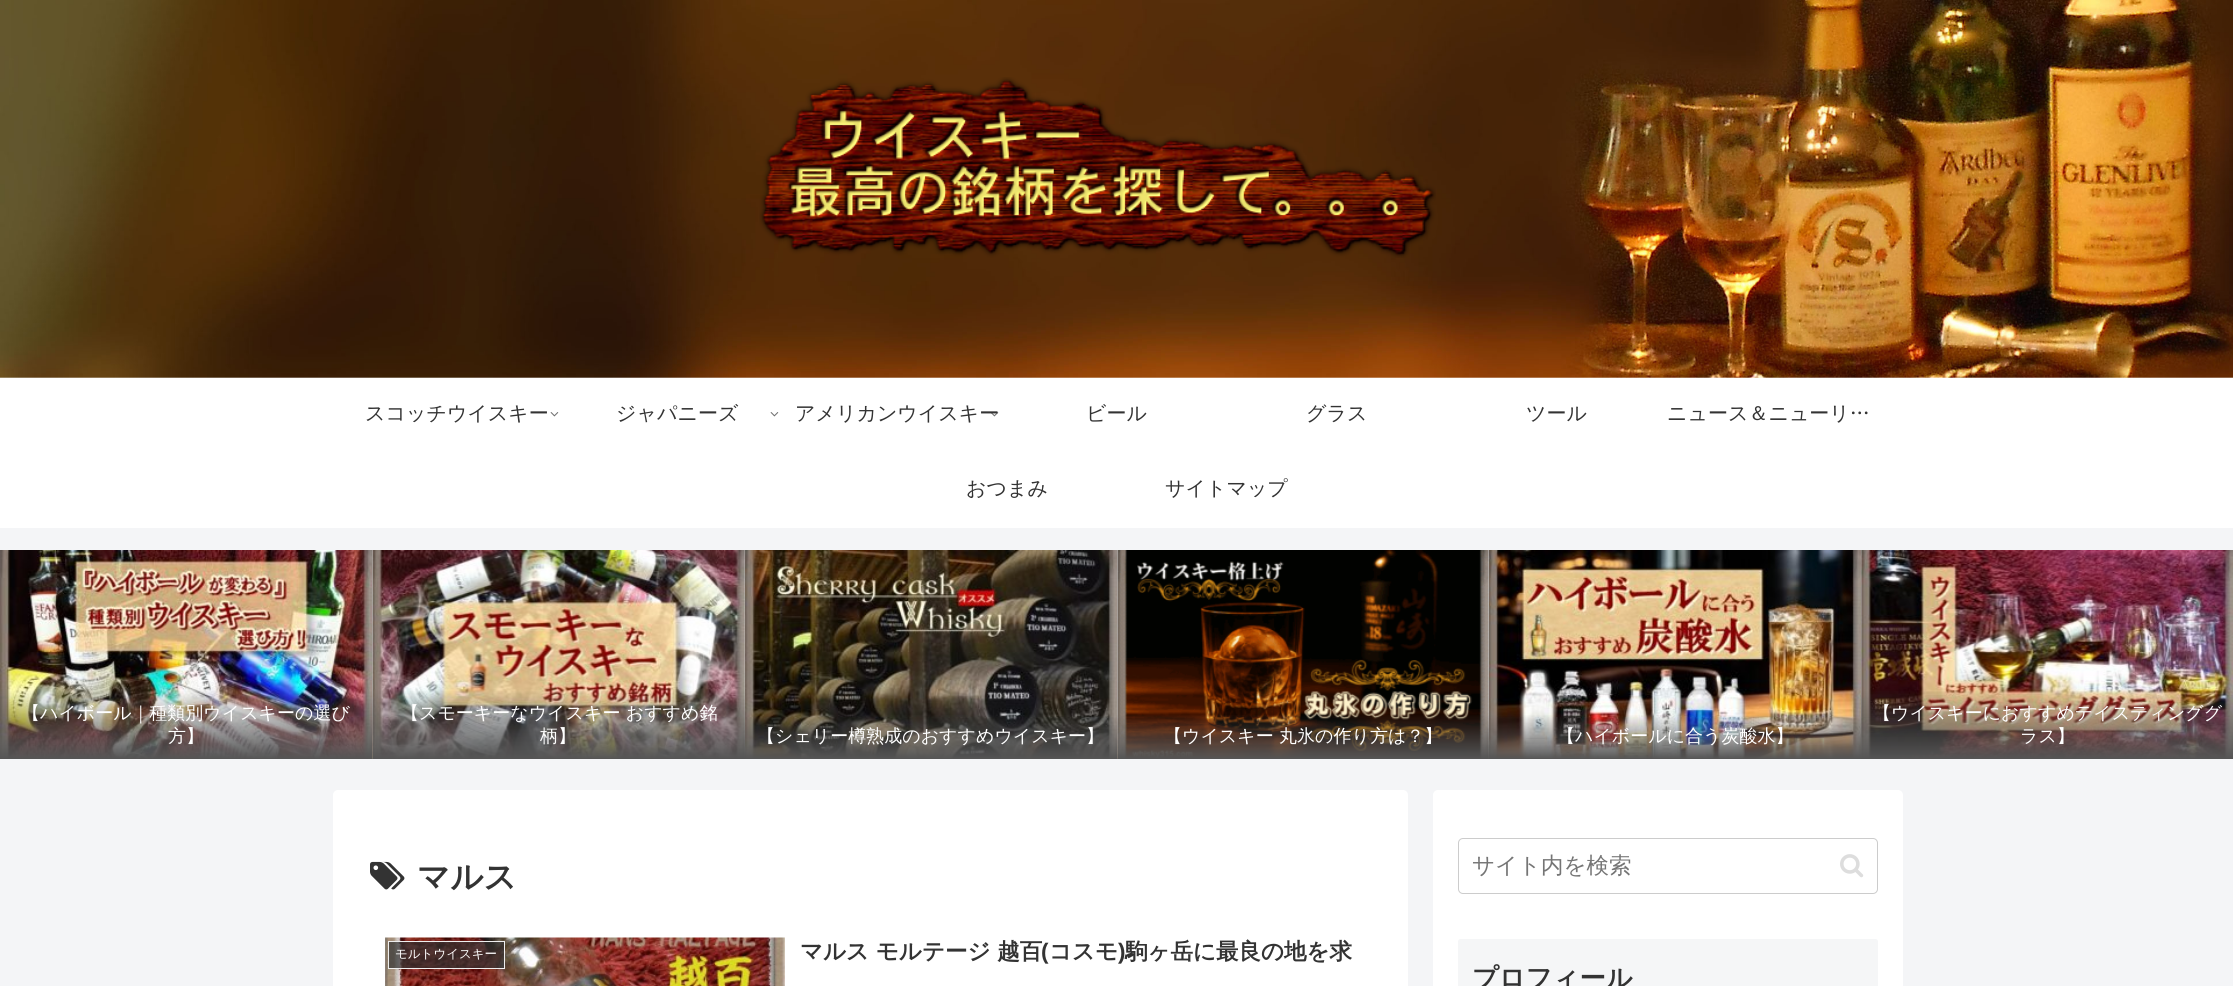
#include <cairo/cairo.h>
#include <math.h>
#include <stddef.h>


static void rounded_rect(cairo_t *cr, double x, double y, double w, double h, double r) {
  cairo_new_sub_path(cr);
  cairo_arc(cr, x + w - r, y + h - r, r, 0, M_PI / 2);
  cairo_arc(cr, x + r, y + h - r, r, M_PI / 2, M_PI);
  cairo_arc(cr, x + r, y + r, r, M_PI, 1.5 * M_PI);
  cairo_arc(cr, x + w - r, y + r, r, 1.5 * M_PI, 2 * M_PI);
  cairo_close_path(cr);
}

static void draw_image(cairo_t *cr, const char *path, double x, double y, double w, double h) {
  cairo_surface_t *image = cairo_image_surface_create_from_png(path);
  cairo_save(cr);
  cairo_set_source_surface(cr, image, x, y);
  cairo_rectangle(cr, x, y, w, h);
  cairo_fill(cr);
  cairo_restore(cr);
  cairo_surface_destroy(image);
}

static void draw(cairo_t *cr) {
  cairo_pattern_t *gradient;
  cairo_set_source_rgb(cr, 244 / 255.0, 245 / 255.0, 247 / 255.0);
  cairo_paint(cr);
  cairo_set_source_rgb(cr, 1, 1, 1);
  cairo_rectangle(cr, 0, 377, 2233, 151);
  cairo_fill(cr);
  draw_image(cr, "images/1.png", 0, 0, 2233, 378);
  draw_image(cr, "images/2.png", 759, 77, 677, 181);
  draw_image(cr, "images/3.png", 550, 412, 9, 5);
  draw_image(cr, "images/3.png", 770, 412, 9, 5);
  draw_image(cr, "images/5.png", 0, 550, 373, 209);
  gradient = cairo_pattern_create_linear(186, 690, 186, 759);
  cairo_pattern_add_color_stop_rgba(gradient, 0, 85 / 255.0, 85 / 255.0, 85 / 255.0, 0);
  cairo_pattern_add_color_stop_rgba(gradient, 1, 85 / 255.0, 85 / 255.0, 85 / 255.0, 1);
  cairo_set_source(cr, gradient);
  cairo_pattern_destroy(gradient);
  cairo_rectangle(cr, 0, 691, 373, 68);
  cairo_fill(cr);
  draw_image(cr, "images/6.png", 372, 550, 373, 209);
  gradient = cairo_pattern_create_linear(559, 690, 559, 759);
  cairo_pattern_add_color_stop_rgba(gradient, 0, 85 / 255.0, 85 / 255.0, 85 / 255.0, 0);
  cairo_pattern_add_color_stop_rgba(gradient, 1, 85 / 255.0, 85 / 255.0, 85 / 255.0, 1);
  cairo_set_source(cr, gradient);
  cairo_pattern_destroy(gradient);
  cairo_rectangle(cr, 373, 691, 372, 68);
  cairo_fill(cr);
  draw_image(cr, "images/7.png", 745, 550, 373, 209);
  gradient = cairo_pattern_create_linear(931, 714, 931, 759);
  cairo_pattern_add_color_stop_rgba(gradient, 0, 85 / 255.0, 85 / 255.0, 85 / 255.0, 0);
  cairo_pattern_add_color_stop_rgba(gradient, 1, 85 / 255.0, 85 / 255.0, 85 / 255.0, 1);
  cairo_set_source(cr, gradient);
  cairo_pattern_destroy(gradient);
  cairo_rectangle(cr, 745, 715, 373, 44);
  cairo_fill(cr);
  draw_image(cr, "images/8.png", 1117, 550, 372, 209);
  gradient = cairo_pattern_create_linear(1303, 714, 1303, 759);
  cairo_pattern_add_color_stop_rgba(gradient, 0, 85 / 255.0, 85 / 255.0, 85 / 255.0, 0);
  cairo_pattern_add_color_stop_rgba(gradient, 1, 85 / 255.0, 85 / 255.0, 85 / 255.0, 1);
  cairo_set_source(cr, gradient);
  cairo_pattern_destroy(gradient);
  cairo_rectangle(cr, 1118, 715, 371, 44);
  cairo_fill(cr);
  draw_image(cr, "images/9.png", 1488, 550, 374, 209);
  gradient = cairo_pattern_create_linear(1675, 714, 1675, 759);
  cairo_pattern_add_color_stop_rgba(gradient, 0, 85 / 255.0, 85 / 255.0, 85 / 255.0, 0);
  cairo_pattern_add_color_stop_rgba(gradient, 1, 85 / 255.0, 85 / 255.0, 85 / 255.0, 1);
  cairo_set_source(cr, gradient);
  cairo_pattern_destroy(gradient);
  cairo_rectangle(cr, 1489, 715, 372, 44);
  cairo_fill(cr);
  draw_image(cr, "images/10.png", 1861, 550, 372, 209);
  gradient = cairo_pattern_create_linear(2048, 690, 2048, 759);
  cairo_pattern_add_color_stop_rgba(gradient, 0, 85 / 255.0, 85 / 255.0, 85 / 255.0, 0);
  cairo_pattern_add_color_stop_rgba(gradient, 1, 85 / 255.0, 85 / 255.0, 85 / 255.0, 1);
  cairo_set_source(cr, gradient);
  cairo_pattern_destroy(gradient);
  cairo_rectangle(cr, 1861, 691, 372, 68);
  cairo_fill(cr);
  cairo_set_source_rgb(cr, 1, 1, 1);
  rounded_rect(cr, 333, 790, 1075, 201, 5);
  cairo_fill(cr);
  draw_image(cr, "images/11.png", 370, 861, 35, 29);
  draw_image(cr, "images/12.png", 385, 937, 400, 49);
  cairo_set_source_rgba(cr, 51 / 255.0, 51 / 255.0, 51 / 255.0, 0.7);
  cairo_rectangle(cr, 388.5, 941.5, 116, 27);
  cairo_fill_preserve(cr);
  cairo_set_source_rgb(cr, 238 / 255.0, 238 / 255.0, 238 / 255.0);
  cairo_set_line_width(cr, 1);
  cairo_stroke(cr);
  cairo_set_source_rgb(cr, 1, 1, 1);
  rounded_rect(cr, 1433, 790, 470, 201, 5);
  cairo_fill(cr);
  rounded_rect(cr, 1458.5, 838.5, 419, 55, 4.5);
  cairo_set_source_rgb(cr, 204 / 255.0, 204 / 255.0, 204 / 255.0);
  cairo_stroke(cr);
  draw_image(cr, "images/13.png", 1840, 854, 24, 24);
  cairo_set_source_rgb(cr, 245 / 255.0, 246 / 255.0, 247 / 255.0);
  rounded_rect(cr, 1458, 939, 420, 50, 2.5);
  cairo_fill(cr);
  cairo_select_font_face(cr, "WenQuanYi Zen Hei Medium", CAIRO_FONT_SLANT_NORMAL, CAIRO_FONT_WEIGHT_NORMAL);
  cairo_set_font_size(cr, 20);
  cairo_set_source_rgb(cr, 51 / 255.0, 51 / 255.0, 51 / 255.0);
  cairo_move_to(cr, 365, 420);
  cairo_show_text(cr, "スコッチウイスキー");
  cairo_move_to(cr, 616, 420);
  cairo_show_text(cr, "ジャパニーズ");
  cairo_move_to(cr, 795, 420);
  cairo_show_text(cr, "アメリカンウイスキー");
  draw_image(cr, "images/4.png", 991, 412, 8, 5);
  cairo_move_to(cr, 1086, 420);
  cairo_show_text(cr, "ビール");
  cairo_move_to(cr, 1306, 420);
  cairo_show_text(cr, "グラス");
  cairo_move_to(cr, 1526, 420);
  cairo_show_text(cr, "ツール");
  cairo_move_to(cr, 1667, 420);
  cairo_show_text(cr, "ニュース＆ニューリ…");
  cairo_move_to(cr, 966, 495);
  cairo_show_text(cr, "おつまみ");
  cairo_move_to(cr, 1165, 495);
  cairo_show_text(cr, "サイトマップ");
  cairo_set_font_size(cr, 18);
  cairo_set_source_rgb(cr, 1, 1, 1);
  cairo_move_to(cr, 22, 719);
  cairo_show_text(cr, "【ハイボール｜種類別ウイスキーの選び");
  cairo_move_to(cr, 168, 742);
  cairo_show_text(cr, "方】");
  cairo_move_to(cr, 401, 719);
  cairo_show_text(cr, "【スモーキーなウイスキー おすすめ銘");
  cairo_move_to(cr, 540, 742);
  cairo_show_text(cr, "柄】");
  cairo_move_to(cr, 757, 742);
  cairo_show_text(cr, "【シェリー樽熟成のおすすめウイスキー】");
  cairo_move_to(cr, 1164, 742);
  cairo_show_text(cr, "【ウイスキー 丸氷の作り方は？】");
  cairo_move_to(cr, 1557, 742);
  cairo_show_text(cr, "【ハイボールに合う炭酸水】");
  cairo_move_to(cr, 1873, 719);
  cairo_show_text(cr, "【ウイスキーにおすすめテイスティンググ");
  cairo_move_to(cr, 2020, 742);
  cairo_show_text(cr, "ラス】");
  cairo_select_font_face(cr, "WenQuanYi Zen Hei", CAIRO_FONT_SLANT_NORMAL, CAIRO_FONT_WEIGHT_BOLD);
  cairo_set_font_size(cr, 32.5);
  cairo_set_source_rgb(cr, 51 / 255.0, 51 / 255.0, 51 / 255.0);
  cairo_move_to(cr, 417, 888);
  cairo_show_text(cr, "マルス");
  cairo_select_font_face(cr, "WenQuanYi Zen Hei Medium", CAIRO_FONT_SLANT_NORMAL, CAIRO_FONT_WEIGHT_NORMAL);
  cairo_set_font_size(cr, 12.5);
  cairo_set_source_rgb(cr, 1, 1, 1);
  cairo_move_to(cr, 395, 958);
  cairo_show_text(cr, "モルトウイスキー");
  cairo_select_font_face(cr, "WenQuanYi Zen Hei", CAIRO_FONT_SLANT_NORMAL, CAIRO_FONT_WEIGHT_BOLD);
  cairo_set_font_size(cr, 22.5);
  cairo_set_source_rgb(cr, 51 / 255.0, 51 / 255.0, 51 / 255.0);
  cairo_move_to(cr, 800, 959);
  cairo_show_text(cr, "マルス モルテージ 越百");
  cairo_select_font_face(cr, "Liberation Sans", CAIRO_FONT_SLANT_NORMAL, CAIRO_FONT_WEIGHT_BOLD);
  cairo_move_to(cr, 1041, 959);
  cairo_show_text(cr, "(");
  cairo_select_font_face(cr, "WenQuanYi Zen Hei", CAIRO_FONT_SLANT_NORMAL, CAIRO_FONT_WEIGHT_BOLD);
  cairo_move_to(cr, 1049, 959);
  cairo_show_text(cr, "コスモ");
  cairo_select_font_face(cr, "Liberation Sans", CAIRO_FONT_SLANT_NORMAL, CAIRO_FONT_WEIGHT_BOLD);
  cairo_move_to(cr, 1118, 959);
  cairo_show_text(cr, ")");
  cairo_select_font_face(cr, "WenQuanYi Zen Hei", CAIRO_FONT_SLANT_NORMAL, CAIRO_FONT_WEIGHT_BOLD);
  cairo_move_to(cr, 1125, 959);
  cairo_show_text(cr, "駒ヶ岳に最良の地を求");
  cairo_select_font_face(cr, "WenQuanYi Zen Hei Medium", CAIRO_FONT_SLANT_NORMAL, CAIRO_FONT_WEIGHT_NORMAL);
  cairo_set_source_rgb(cr, 117 / 255.0, 117 / 255.0, 117 / 255.0);
  cairo_move_to(cr, 1472, 873);
  cairo_show_text(cr, "サイト内を検索");
  cairo_select_font_face(cr, "WenQuanYi Zen Hei", CAIRO_FONT_SLANT_NORMAL, CAIRO_FONT_WEIGHT_BOLD);
  cairo_set_font_size(cr, 26.25);
  cairo_set_source_rgb(cr, 51 / 255.0, 51 / 255.0, 51 / 255.0);
  cairo_move_to(cr, 1472, 987);
  cairo_show_text(cr, "プロフィール");
}

int main(void) {
  cairo_surface_t *surface = cairo_image_surface_create(CAIRO_FORMAT_RGB24, 2233, 986);
  cairo_t *cr = cairo_create(surface);
  cairo_font_options_t *options = cairo_font_options_create();
  cairo_font_options_set_hint_metrics(options, CAIRO_HINT_METRICS_OFF);
  cairo_font_options_set_hint_style(options, CAIRO_HINT_STYLE_NONE);
  cairo_set_font_options(cr, options);
  cairo_set_miter_limit(cr, 4);
  draw(cr);
  cairo_surface_write_to_png(surface, "out.png");
  cairo_font_options_destroy(options);
  cairo_destroy(cr);
  cairo_surface_destroy(surface);
  return 0;
}
